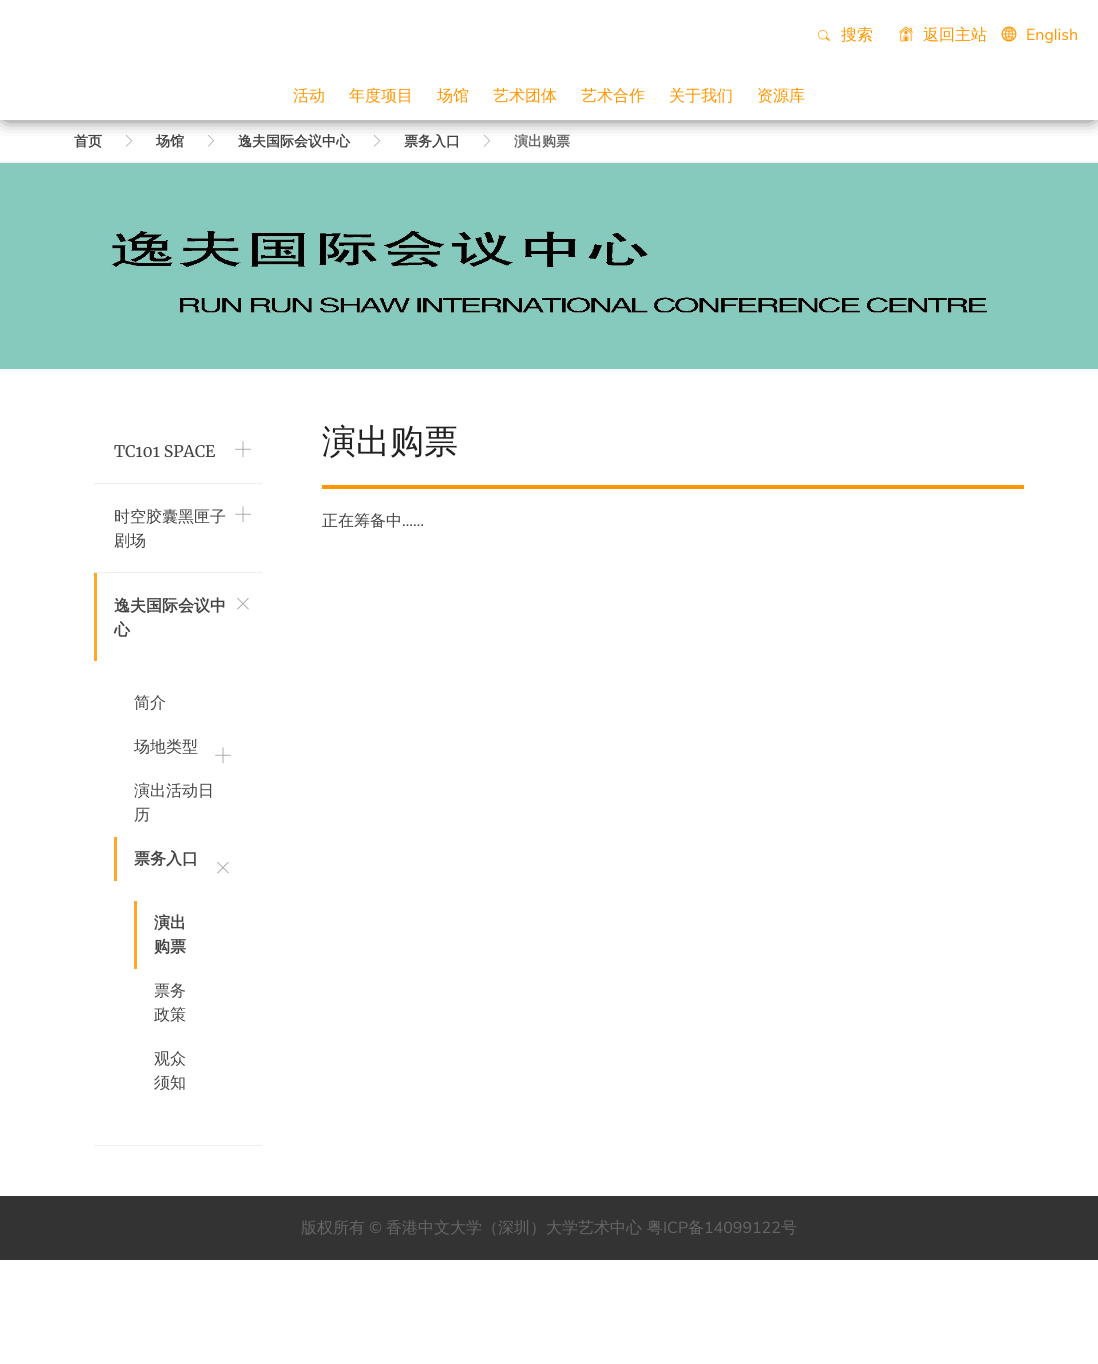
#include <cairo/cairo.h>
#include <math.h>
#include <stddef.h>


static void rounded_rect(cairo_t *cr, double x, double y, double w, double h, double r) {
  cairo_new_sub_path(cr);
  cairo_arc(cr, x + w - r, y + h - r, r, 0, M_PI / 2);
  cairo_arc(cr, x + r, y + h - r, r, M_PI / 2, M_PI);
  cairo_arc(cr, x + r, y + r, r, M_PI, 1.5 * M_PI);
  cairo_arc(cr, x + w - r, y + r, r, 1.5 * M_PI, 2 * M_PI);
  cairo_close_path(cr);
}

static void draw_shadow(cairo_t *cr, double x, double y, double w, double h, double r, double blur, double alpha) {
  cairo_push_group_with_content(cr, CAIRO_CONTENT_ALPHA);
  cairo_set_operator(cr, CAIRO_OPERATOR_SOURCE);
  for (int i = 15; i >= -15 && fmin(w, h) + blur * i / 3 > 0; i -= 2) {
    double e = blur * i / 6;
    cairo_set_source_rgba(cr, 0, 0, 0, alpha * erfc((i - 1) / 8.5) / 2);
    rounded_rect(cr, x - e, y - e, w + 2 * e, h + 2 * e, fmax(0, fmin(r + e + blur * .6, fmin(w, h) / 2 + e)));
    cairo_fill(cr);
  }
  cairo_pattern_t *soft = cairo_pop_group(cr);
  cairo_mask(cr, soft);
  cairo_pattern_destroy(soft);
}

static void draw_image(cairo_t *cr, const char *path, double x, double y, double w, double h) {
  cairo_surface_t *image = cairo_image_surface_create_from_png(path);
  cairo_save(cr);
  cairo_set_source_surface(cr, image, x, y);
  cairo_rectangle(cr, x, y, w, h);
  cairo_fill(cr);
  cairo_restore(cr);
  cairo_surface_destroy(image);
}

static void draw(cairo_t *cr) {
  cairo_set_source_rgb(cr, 1, 1, 1);
  cairo_paint(cr);
  draw_image(cr, "images/4.png", 125, 134, 8, 13);
  draw_image(cr, "images/4.png", 207, 134, 8, 13);
  draw_image(cr, "images/4.png", 373, 134, 8, 13);
  draw_image(cr, "images/4.png", 483, 134, 8, 13);
  cairo_save(cr);
  cairo_rectangle(cr, 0, 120, 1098, 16);
  cairo_clip(cr);
  cairo_set_source_rgb(cr, 0, 0, 0);
  draw_shadow(cr, 6, 7, 1086, 108, 0, 10, 1);
  cairo_restore(cr);
  draw_image(cr, "images/1.png", 818, 30, 12, 11);
  draw_image(cr, "images/2.png", 899, 26, 14, 16);
  draw_image(cr, "images/3.png", 1001, 26, 16, 16);
  cairo_set_source_rgb(cr, 238 / 255.0, 238 / 255.0, 238 / 255.0);
  cairo_rectangle(cr, 0, 162, 1098, 1);
  cairo_fill(cr);
  draw_image(cr, "images/5.png", 0, 163, 1098, 206);
  cairo_rectangle(cr, 94, 483, 168, 1);
  cairo_fill(cr);
  draw_image(cr, "images/6.png", 235, 441, 16, 17);
  cairo_rectangle(cr, 94, 572, 168, 1);
  cairo_fill(cr);
  draw_image(cr, "images/6.png", 235, 506, 16, 17);
  cairo_rectangle(cr, 94, 1145, 168, 1);
  cairo_fill(cr);
  cairo_set_source_rgb(cr, 1, 167 / 255.0, 41 / 255.0);
  cairo_rectangle(cr, 94, 573, 3, 88);
  cairo_fill(cr);
  draw_image(cr, "images/7.png", 237, 597, 12, 13);
  draw_image(cr, "images/6.png", 215, 747, 16, 17);
  cairo_rectangle(cr, 114, 837, 3, 44);
  cairo_fill(cr);
  draw_image(cr, "images/7.png", 217, 861, 12, 13);
  cairo_rectangle(cr, 134, 901, 3, 68);
  cairo_fill(cr);
  cairo_set_source_rgb(cr, 1, 150 / 255.0, 0);
  cairo_rectangle(cr, 322, 485, 702, 4);
  cairo_fill(cr);
  cairo_set_source_rgb(cr, 51 / 255.0, 51 / 255.0, 51 / 255.0);
  cairo_rectangle(cr, 0, 1196, 1098, 64);
  cairo_fill(cr);
  cairo_select_font_face(cr, "WenQuanYi Zen Hei Medium", CAIRO_FONT_SLANT_NORMAL, CAIRO_FONT_WEIGHT_NORMAL);
  cairo_set_font_size(cr, 16);
  cairo_set_source_rgb(cr, 1, 150 / 255.0, 0);
  cairo_move_to(cr, 841, 40);
  cairo_show_text(cr, "搜索");
  cairo_move_to(cr, 923, 40);
  cairo_show_text(cr, "返回主站");
  cairo_select_font_face(cr, "Nunito Sans", CAIRO_FONT_SLANT_NORMAL, CAIRO_FONT_WEIGHT_NORMAL);
  cairo_move_to(cr, 1026, 40);
  cairo_show_text(cr, "English");
  cairo_select_font_face(cr, "WenQuanYi Zen Hei Medium", CAIRO_FONT_SLANT_NORMAL, CAIRO_FONT_WEIGHT_NORMAL);
  cairo_move_to(cr, 293, 101);
  cairo_show_text(cr, "活动");
  cairo_move_to(cr, 349, 101);
  cairo_show_text(cr, "年度项目");
  cairo_move_to(cr, 437, 101);
  cairo_show_text(cr, "场馆");
  cairo_move_to(cr, 493, 101);
  cairo_show_text(cr, "艺术团体");
  cairo_move_to(cr, 581, 101);
  cairo_show_text(cr, "艺术合作");
  cairo_move_to(cr, 669, 101);
  cairo_show_text(cr, "关于我们");
  cairo_move_to(cr, 757, 101);
  cairo_show_text(cr, "资源库");
  cairo_select_font_face(cr, "WenQuanYi Zen Hei", CAIRO_FONT_SLANT_NORMAL, CAIRO_FONT_WEIGHT_BOLD);
  cairo_set_font_size(cr, 14);
  cairo_set_source_rgb(cr, 68 / 255.0, 68 / 255.0, 68 / 255.0);
  cairo_move_to(cr, 74, 146);
  cairo_show_text(cr, "首页");
  cairo_move_to(cr, 156, 146);
  cairo_show_text(cr, "场馆");
  cairo_move_to(cr, 238, 146);
  cairo_show_text(cr, "逸夫国际会议中心");
  cairo_move_to(cr, 404, 146);
  cairo_show_text(cr, "票务入口");
  cairo_set_source_rgb(cr, 102 / 255.0, 102 / 255.0, 102 / 255.0);
  cairo_move_to(cr, 514, 146);
  cairo_show_text(cr, "演出购票");
  cairo_select_font_face(cr, "Merriweather", CAIRO_FONT_SLANT_NORMAL, CAIRO_FONT_WEIGHT_NORMAL);
  cairo_set_font_size(cr, 16);
  cairo_set_source_rgb(cr, 68 / 255.0, 68 / 255.0, 68 / 255.0);
  cairo_move_to(cr, 114, 457);
  cairo_show_text(cr, "TC101 SPACE");
  cairo_select_font_face(cr, "WenQuanYi Zen Hei Medium", CAIRO_FONT_SLANT_NORMAL, CAIRO_FONT_WEIGHT_NORMAL);
  cairo_move_to(cr, 114, 522);
  cairo_show_text(cr, "时空胶囊黑匣子");
  cairo_move_to(cr, 114, 546);
  cairo_show_text(cr, "剧场");
  cairo_select_font_face(cr, "WenQuanYi Zen Hei", CAIRO_FONT_SLANT_NORMAL, CAIRO_FONT_WEIGHT_BOLD);
  cairo_move_to(cr, 114, 611);
  cairo_show_text(cr, "逸夫国际会议中");
  cairo_move_to(cr, 114, 635);
  cairo_show_text(cr, "心");
  cairo_select_font_face(cr, "WenQuanYi Zen Hei Medium", CAIRO_FONT_SLANT_NORMAL, CAIRO_FONT_WEIGHT_NORMAL);
  cairo_move_to(cr, 134, 708);
  cairo_show_text(cr, "简介");
  cairo_move_to(cr, 134, 752);
  cairo_show_text(cr, "场地类型");
  cairo_move_to(cr, 134, 796);
  cairo_show_text(cr, "演出活动日");
  cairo_move_to(cr, 134, 820);
  cairo_show_text(cr, "历");
  cairo_select_font_face(cr, "WenQuanYi Zen Hei", CAIRO_FONT_SLANT_NORMAL, CAIRO_FONT_WEIGHT_BOLD);
  cairo_move_to(cr, 134, 864);
  cairo_show_text(cr, "票务入口");
  cairo_move_to(cr, 154, 928);
  cairo_show_text(cr, "演出");
  cairo_move_to(cr, 154, 952);
  cairo_show_text(cr, "购票");
  cairo_select_font_face(cr, "WenQuanYi Zen Hei Medium", CAIRO_FONT_SLANT_NORMAL, CAIRO_FONT_WEIGHT_NORMAL);
  cairo_move_to(cr, 154, 996);
  cairo_show_text(cr, "票务");
  cairo_move_to(cr, 154, 1020);
  cairo_show_text(cr, "政策");
  cairo_move_to(cr, 154, 1064);
  cairo_show_text(cr, "观众");
  cairo_move_to(cr, 154, 1088);
  cairo_show_text(cr, "须知");
  cairo_set_font_size(cr, 34);
  cairo_set_source_rgb(cr, 33 / 255.0, 33 / 255.0, 33 / 255.0);
  cairo_move_to(cr, 322, 453);
  cairo_show_text(cr, "演出购票");
  cairo_set_font_size(cr, 16);
  cairo_set_source_rgb(cr, 68 / 255.0, 68 / 255.0, 68 / 255.0);
  cairo_move_to(cr, 322, 526);
  cairo_show_text(cr, "正在筹备中");
  cairo_select_font_face(cr, "Nunito Sans", CAIRO_FONT_SLANT_NORMAL, CAIRO_FONT_WEIGHT_NORMAL);
  cairo_move_to(cr, 402, 526);
  cairo_show_text(cr, "……");
  cairo_select_font_face(cr, "WenQuanYi Zen Hei Medium", CAIRO_FONT_SLANT_NORMAL, CAIRO_FONT_WEIGHT_NORMAL);
  cairo_set_source_rgb(cr, 102 / 255.0, 102 / 255.0, 102 / 255.0);
  cairo_move_to(cr, 301, 1233);
  cairo_show_text(cr, "版权所有");
  cairo_select_font_face(cr, "Nunito Sans", CAIRO_FONT_SLANT_NORMAL, CAIRO_FONT_WEIGHT_NORMAL);
  cairo_move_to(cr, 369, 1233);
  cairo_show_text(cr, "©");
  cairo_select_font_face(cr, "WenQuanYi Zen Hei Medium", CAIRO_FONT_SLANT_NORMAL, CAIRO_FONT_WEIGHT_NORMAL);
  cairo_move_to(cr, 386, 1233);
  cairo_show_text(cr, "香港中文大学（深圳）大学艺术中心 粤");
  cairo_select_font_face(cr, "Nunito Sans", CAIRO_FONT_SLANT_NORMAL, CAIRO_FONT_WEIGHT_NORMAL);
  cairo_move_to(cr, 663, 1233);
  cairo_show_text(cr, "ICP");
  cairo_select_font_face(cr, "WenQuanYi Zen Hei Medium", CAIRO_FONT_SLANT_NORMAL, CAIRO_FONT_WEIGHT_NORMAL);
  cairo_move_to(cr, 688, 1233);
  cairo_show_text(cr, "备");
  cairo_select_font_face(cr, "Nunito Sans", CAIRO_FONT_SLANT_NORMAL, CAIRO_FONT_WEIGHT_NORMAL);
  cairo_move_to(cr, 704, 1233);
  cairo_show_text(cr, "14099122");
  cairo_select_font_face(cr, "WenQuanYi Zen Hei Medium", CAIRO_FONT_SLANT_NORMAL, CAIRO_FONT_WEIGHT_NORMAL);
  cairo_move_to(cr, 781, 1233);
  cairo_show_text(cr, "号");
}

int main(void) {
  cairo_surface_t *surface = cairo_image_surface_create(CAIRO_FORMAT_RGB24, 1098, 1364);
  cairo_t *cr = cairo_create(surface);
  cairo_font_options_t *options = cairo_font_options_create();
  cairo_font_options_set_hint_metrics(options, CAIRO_HINT_METRICS_OFF);
  cairo_font_options_set_hint_style(options, CAIRO_HINT_STYLE_NONE);
  cairo_set_font_options(cr, options);
  cairo_set_miter_limit(cr, 4);
  draw(cr);
  cairo_surface_write_to_png(surface, "out.png");
  cairo_font_options_destroy(options);
  cairo_destroy(cr);
  cairo_surface_destroy(surface);
  return 0;
}
